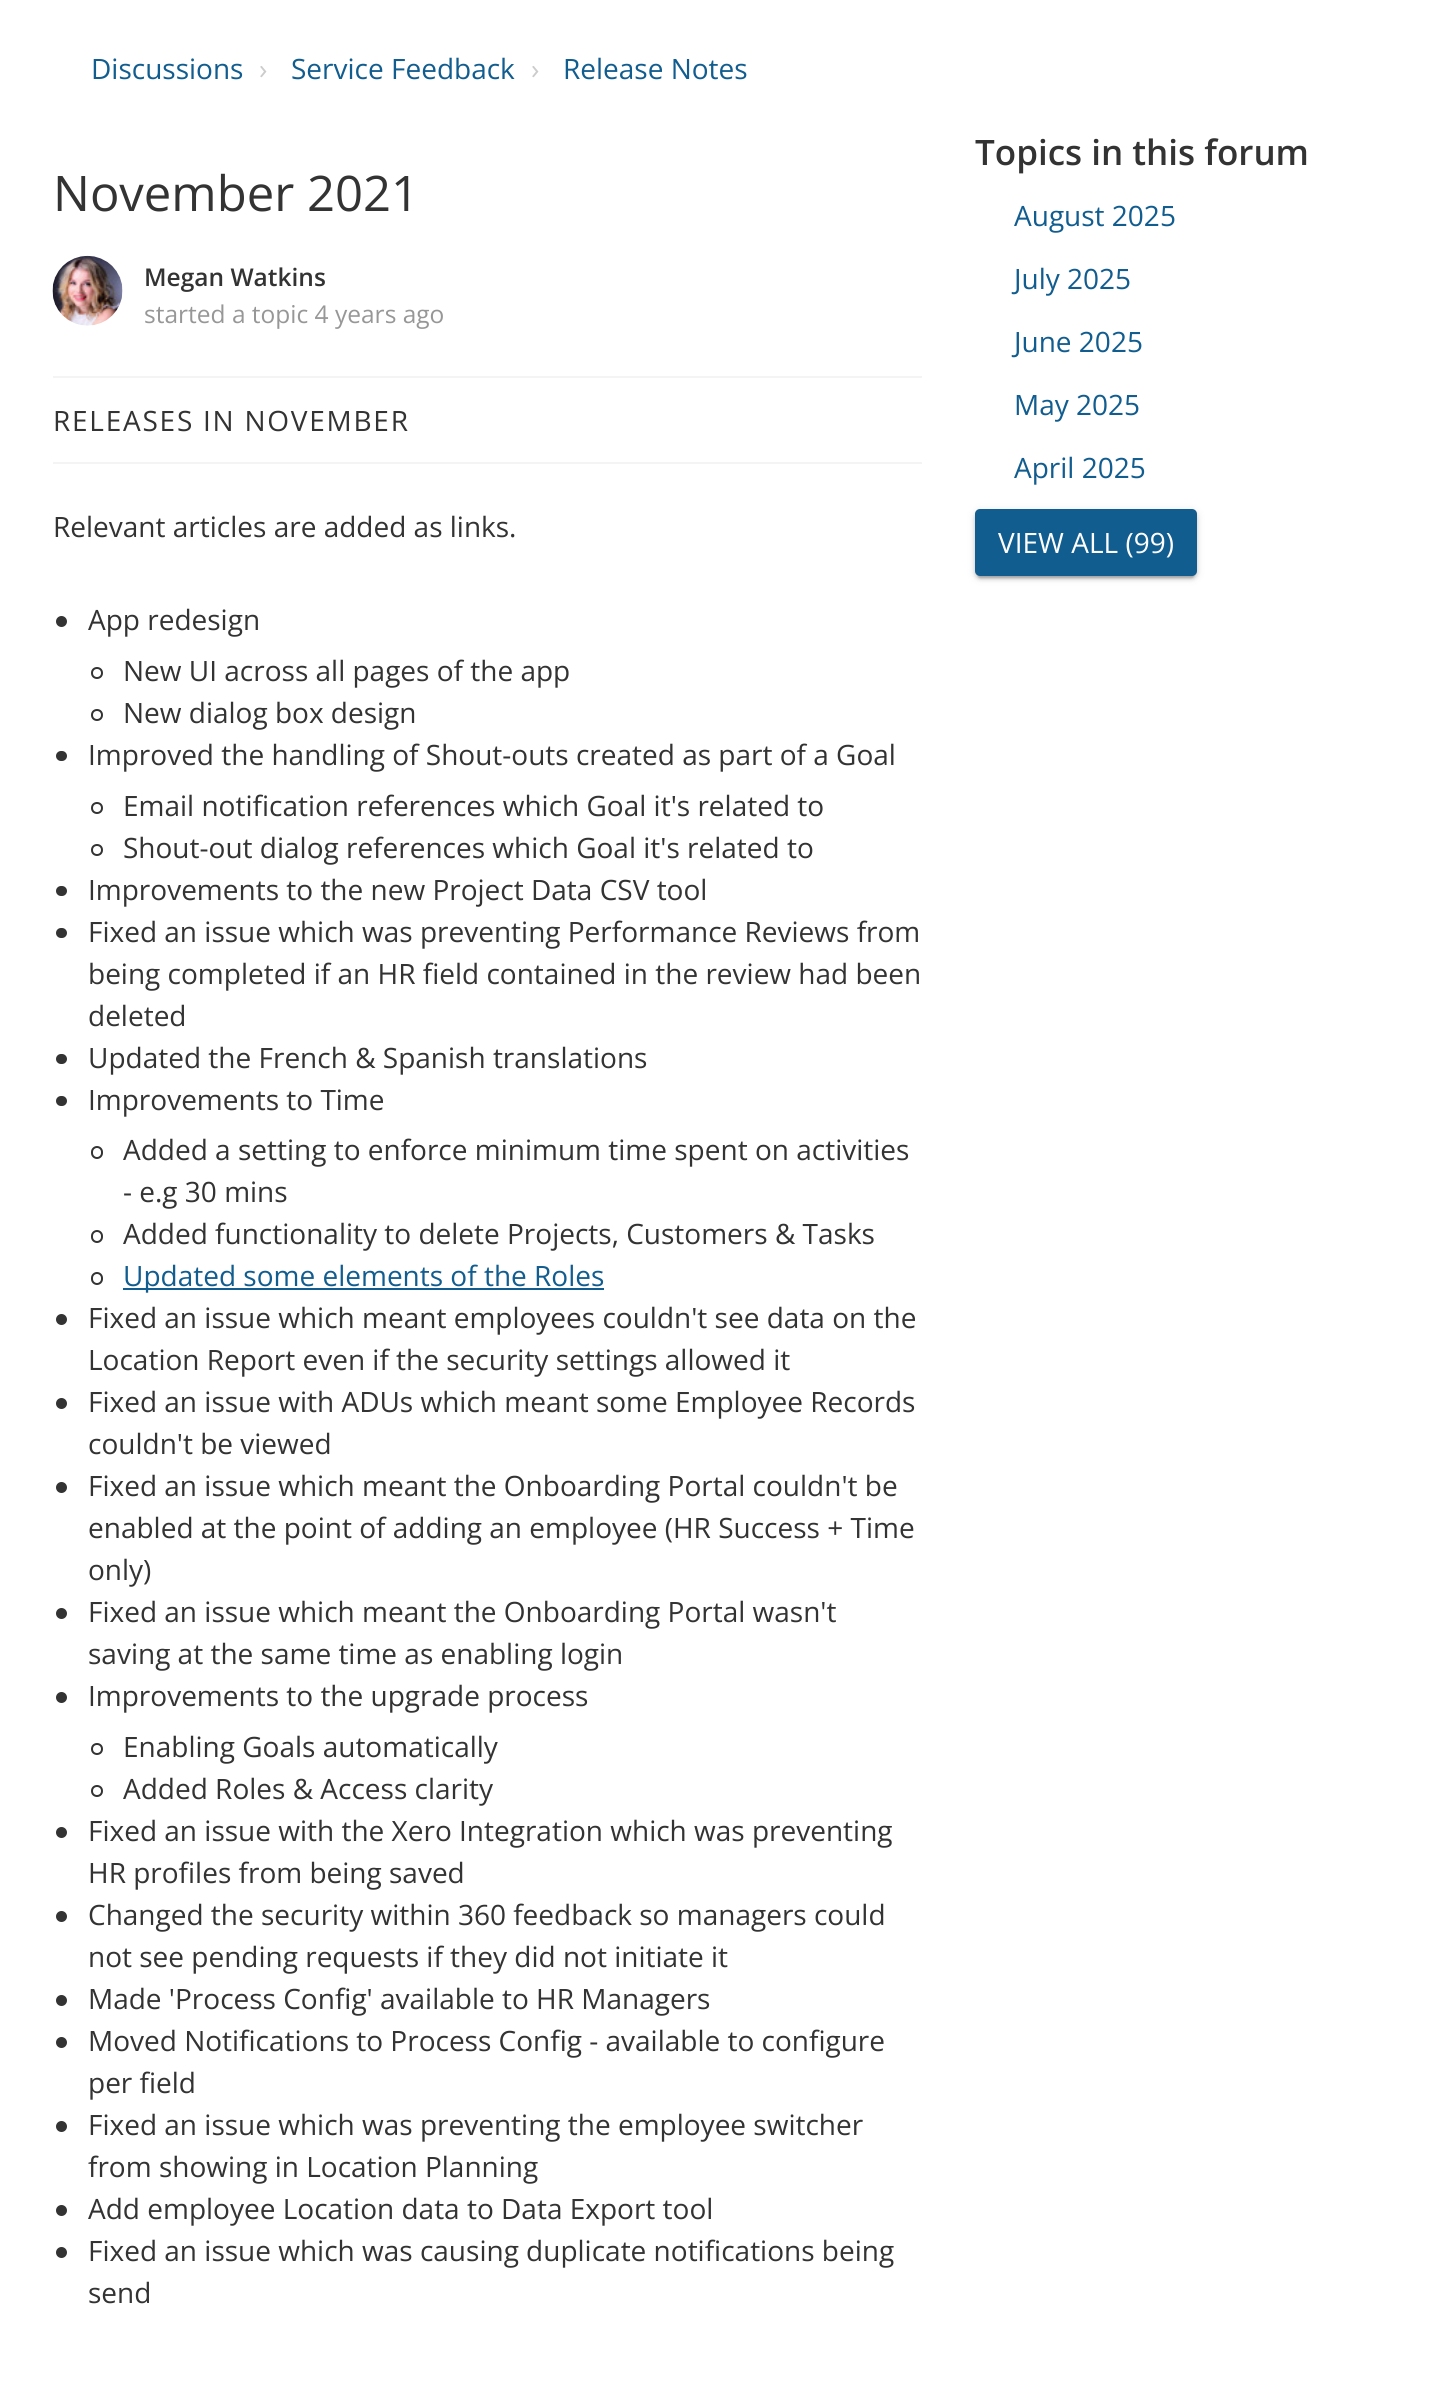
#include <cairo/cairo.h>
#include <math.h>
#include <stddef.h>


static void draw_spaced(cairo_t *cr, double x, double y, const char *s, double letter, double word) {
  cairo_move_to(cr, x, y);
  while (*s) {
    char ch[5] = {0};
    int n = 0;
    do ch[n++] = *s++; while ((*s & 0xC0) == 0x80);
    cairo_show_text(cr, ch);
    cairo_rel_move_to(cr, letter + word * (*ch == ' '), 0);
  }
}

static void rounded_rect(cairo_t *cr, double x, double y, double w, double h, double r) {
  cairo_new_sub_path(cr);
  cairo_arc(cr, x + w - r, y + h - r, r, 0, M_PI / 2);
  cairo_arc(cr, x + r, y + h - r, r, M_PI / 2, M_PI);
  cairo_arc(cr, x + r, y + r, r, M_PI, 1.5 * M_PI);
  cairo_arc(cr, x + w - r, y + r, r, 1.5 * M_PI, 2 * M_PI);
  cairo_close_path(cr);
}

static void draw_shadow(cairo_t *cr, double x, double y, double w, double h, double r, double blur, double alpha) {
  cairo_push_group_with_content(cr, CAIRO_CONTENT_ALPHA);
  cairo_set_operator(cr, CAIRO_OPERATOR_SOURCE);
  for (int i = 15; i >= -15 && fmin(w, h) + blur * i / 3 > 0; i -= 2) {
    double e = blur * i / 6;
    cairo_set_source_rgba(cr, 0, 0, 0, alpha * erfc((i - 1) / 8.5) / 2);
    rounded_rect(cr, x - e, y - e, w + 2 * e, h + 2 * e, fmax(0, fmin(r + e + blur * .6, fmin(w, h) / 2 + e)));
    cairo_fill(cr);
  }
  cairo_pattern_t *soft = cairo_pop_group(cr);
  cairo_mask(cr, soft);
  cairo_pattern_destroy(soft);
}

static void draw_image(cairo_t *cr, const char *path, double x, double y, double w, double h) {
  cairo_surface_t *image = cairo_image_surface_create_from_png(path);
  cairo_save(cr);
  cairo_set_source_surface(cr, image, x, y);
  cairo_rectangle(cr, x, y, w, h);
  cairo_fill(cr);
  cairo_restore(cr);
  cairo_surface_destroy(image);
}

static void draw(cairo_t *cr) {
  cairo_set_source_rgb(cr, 1, 1, 1);
  cairo_paint(cr);
  draw_image(cr, "images/1.png", 52, 255, 71, 71);
  cairo_set_source_rgb(cr, 244 / 255.0, 244 / 255.0, 244 / 255.0);
  cairo_rectangle(cr, 53, 376, 869, 2);
  cairo_fill(cr);
  cairo_rectangle(cr, 53, 462, 869, 2);
  cairo_fill(cr);
  cairo_set_source_rgb(cr, 51 / 255.0, 51 / 255.0, 51 / 255.0);
  cairo_arc(cr, 61.5, 621.5, 5.5, 0, 2 * M_PI);
  cairo_fill(cr);
  cairo_arc(cr, 97, 673, 5, 0, 2 * M_PI);
  cairo_stroke(cr);
  cairo_arc(cr, 97, 715, 5, 0, 2 * M_PI);
  cairo_stroke(cr);
  rounded_rect(cr, 56, 751, 11, 10, 5);
  cairo_fill(cr);
  cairo_arc(cr, 97, 808, 5, 0, 2 * M_PI);
  cairo_stroke(cr);
  cairo_arc(cr, 97, 850, 5, 0, 2 * M_PI);
  cairo_stroke(cr);
  rounded_rect(cr, 56, 886, 11, 10, 5);
  cairo_fill(cr);
  rounded_rect(cr, 56, 928, 11, 10, 5);
  cairo_fill(cr);
  rounded_rect(cr, 56, 1054, 11, 10, 5);
  cairo_fill(cr);
  rounded_rect(cr, 56, 1096, 11, 10, 5);
  cairo_fill(cr);
  rounded_rect(cr, 92, 1147, 10, 11, 5);
  cairo_stroke(cr);
  rounded_rect(cr, 92, 1231, 10, 11, 5);
  cairo_stroke(cr);
  rounded_rect(cr, 92, 1273, 10, 11, 5);
  cairo_stroke(cr);
  cairo_set_source_rgb(cr, 18 / 255.0, 93 / 255.0, 143 / 255.0);
  cairo_rectangle(cr, 123, 1288, 481, 2);
  cairo_fill(cr);
  cairo_set_source_rgb(cr, 51 / 255.0, 51 / 255.0, 51 / 255.0);
  cairo_arc(cr, 61.5, 1319.5, 5.5, 0, 2 * M_PI);
  cairo_fill(cr);
  cairo_arc(cr, 61.5, 1403.5, 5.5, 0, 2 * M_PI);
  cairo_fill(cr);
  cairo_arc(cr, 61.5, 1487.5, 5.5, 0, 2 * M_PI);
  cairo_fill(cr);
  cairo_arc(cr, 61.5, 1613.5, 5.5, 0, 2 * M_PI);
  cairo_fill(cr);
  cairo_arc(cr, 61.5, 1697.5, 5.5, 0, 2 * M_PI);
  cairo_fill(cr);
  cairo_arc(cr, 97, 1749, 5, 0, 2 * M_PI);
  cairo_stroke(cr);
  cairo_arc(cr, 97, 1791, 5, 0, 2 * M_PI);
  cairo_stroke(cr);
  cairo_arc(cr, 61.5, 1832.5, 5.5, 0, 2 * M_PI);
  cairo_fill(cr);
  cairo_arc(cr, 61.5, 1916.5, 5.5, 0, 2 * M_PI);
  cairo_fill(cr);
  cairo_arc(cr, 61.5, 2000.5, 5.5, 0, 2 * M_PI);
  cairo_fill(cr);
  cairo_arc(cr, 61.5, 2042.5, 5.5, 0, 2 * M_PI);
  cairo_fill(cr);
  cairo_arc(cr, 61.5, 2126.5, 5.5, 0, 2 * M_PI);
  cairo_fill(cr);
  cairo_arc(cr, 61.5, 2210.5, 5.5, 0, 2 * M_PI);
  cairo_fill(cr);
  cairo_arc(cr, 61.5, 2252.5, 5.5, 0, 2 * M_PI);
  cairo_fill(cr);
  cairo_set_source_rgb(cr, 0, 0, 0);
  draw_shadow(cr, 975, 511, 222, 67, 5, 4.5, 0.12);
  draw_shadow(cr, 978, 518, 216, 60, 2, 1, 0.2);
  draw_shadow(cr, 975, 513, 222, 66, 5, 2, 0.14);
  cairo_set_source_rgb(cr, 18 / 255.0, 93 / 255.0, 143 / 255.0);
  rounded_rect(cr, 975, 509, 222, 67, 5);
  cairo_fill(cr);
  cairo_select_font_face(cr, "Open Sans", CAIRO_FONT_SLANT_NORMAL, CAIRO_FONT_WEIGHT_NORMAL);
  cairo_set_font_size(cr, 28);
  cairo_move_to(cr, 91, 79);
  cairo_show_text(cr, "Discussions");
  cairo_set_source_rgb(cr, 204 / 255.0, 204 / 255.0, 204 / 255.0);
  cairo_move_to(cr, 259, 79);
  cairo_show_text(cr, "›");
  cairo_set_source_rgb(cr, 18 / 255.0, 93 / 255.0, 143 / 255.0);
  cairo_move_to(cr, 291, 79);
  cairo_show_text(cr, "Service Feedback");
  cairo_set_source_rgb(cr, 204 / 255.0, 204 / 255.0, 204 / 255.0);
  cairo_move_to(cr, 531, 79);
  cairo_show_text(cr, "›");
  cairo_set_source_rgb(cr, 18 / 255.0, 93 / 255.0, 143 / 255.0);
  cairo_move_to(cr, 563, 79);
  cairo_show_text(cr, "Release Notes");
  cairo_set_font_size(cr, 49);
  cairo_set_source_rgb(cr, 51 / 255.0, 51 / 255.0, 51 / 255.0);
  cairo_move_to(cr, 53, 211);
  cairo_show_text(cr, "November 2021");
  cairo_select_font_face(cr, "Open Sans SemiBold", CAIRO_FONT_SLANT_NORMAL, CAIRO_FONT_WEIGHT_NORMAL);
  cairo_set_font_size(cr, 24.5);
  cairo_move_to(cr, 144, 286);
  cairo_show_text(cr, "Megan Watkins");
  cairo_select_font_face(cr, "Open Sans", CAIRO_FONT_SLANT_NORMAL, CAIRO_FONT_WEIGHT_NORMAL);
  cairo_set_source_rgb(cr, 151 / 255.0, 151 / 255.0, 151 / 255.0);
  cairo_move_to(cr, 144, 323);
  cairo_show_text(cr, "started a topic 4 years ago");
  cairo_set_font_size(cr, 28);
  cairo_set_source_rgb(cr, 51 / 255.0, 51 / 255.0, 51 / 255.0);
  draw_spaced(cr, 53, 431, "RELEASES IN NOVEMBER", 1.75, 0);
  cairo_move_to(cr, 53, 537);
  cairo_show_text(cr, "Relevant articles are added as links.");
  cairo_move_to(cr, 88, 630);
  cairo_show_text(cr, "App redesign");
  cairo_move_to(cr, 123, 681);
  cairo_show_text(cr, "New UI across all pages of the app");
  cairo_move_to(cr, 123, 723);
  cairo_show_text(cr, "New dialog box design");
  cairo_move_to(cr, 88, 765);
  cairo_show_text(cr, "Improved the handling of Shout-outs created as part of a Goal");
  cairo_move_to(cr, 123, 816);
  cairo_show_text(cr, "Email notification references which Goal it's related to");
  cairo_move_to(cr, 123, 858);
  cairo_show_text(cr, "Shout-out dialog references which Goal it's related to");
  cairo_move_to(cr, 88, 900);
  cairo_show_text(cr, "Improvements to the new Project Data CSV tool");
  cairo_move_to(cr, 88, 942);
  cairo_show_text(cr, "Fixed an issue which was preventing Performance Reviews from");
  cairo_move_to(cr, 88, 984);
  cairo_show_text(cr, "being completed if an HR field contained in the review had been");
  cairo_move_to(cr, 88, 1026);
  cairo_show_text(cr, "deleted");
  cairo_move_to(cr, 88, 1068);
  cairo_show_text(cr, "Updated the French & Spanish translations");
  cairo_move_to(cr, 88, 1110);
  cairo_show_text(cr, "Improvements to Time");
  cairo_move_to(cr, 123, 1160);
  cairo_show_text(cr, "Added a setting to enforce minimum time spent on activities");
  cairo_move_to(cr, 123, 1202);
  cairo_show_text(cr, "- e.g 30 mins");
  cairo_move_to(cr, 123, 1244);
  cairo_show_text(cr, "Added functionality to delete Projects, Customers & Tasks");
  cairo_set_source_rgb(cr, 18 / 255.0, 93 / 255.0, 143 / 255.0);
  cairo_move_to(cr, 123, 1286);
  cairo_show_text(cr, "Updated some elements of the Roles");
  cairo_set_source_rgb(cr, 51 / 255.0, 51 / 255.0, 51 / 255.0);
  cairo_move_to(cr, 88, 1328);
  cairo_show_text(cr, "Fixed an issue which meant employees couldn't see data on the");
  cairo_move_to(cr, 88, 1370);
  cairo_show_text(cr, "Location Report even if the security settings allowed it");
  cairo_move_to(cr, 88, 1412);
  cairo_show_text(cr, "Fixed an issue with ADUs which meant some Employee Records");
  cairo_move_to(cr, 88, 1454);
  cairo_show_text(cr, "couldn't be viewed");
  cairo_move_to(cr, 88, 1496);
  cairo_show_text(cr, "Fixed an issue which meant the Onboarding Portal couldn't be");
  cairo_move_to(cr, 88, 1538);
  cairo_show_text(cr, "enabled at the point of adding an employee (HR Success + Time");
  cairo_move_to(cr, 88, 1580);
  cairo_show_text(cr, "only)");
  cairo_move_to(cr, 88, 1622);
  cairo_show_text(cr, "Fixed an issue which meant the Onboarding Portal wasn't");
  cairo_move_to(cr, 88, 1664);
  cairo_show_text(cr, "saving at the same time as enabling login");
  cairo_move_to(cr, 88, 1706);
  cairo_show_text(cr, "Improvements to the upgrade process");
  cairo_move_to(cr, 123, 1757);
  cairo_show_text(cr, "Enabling Goals automatically");
  cairo_move_to(cr, 123, 1799);
  cairo_show_text(cr, "Added Roles & Access clarity");
  cairo_move_to(cr, 88, 1841);
  cairo_show_text(cr, "Fixed an issue with the Xero Integration which was preventing");
  cairo_move_to(cr, 88, 1883);
  cairo_show_text(cr, "HR profiles from being saved");
  cairo_move_to(cr, 88, 1925);
  cairo_show_text(cr, "Changed the security within 360 feedback so managers could");
  cairo_move_to(cr, 88, 1967);
  cairo_show_text(cr, "not see pending requests if they did not initiate it");
  cairo_move_to(cr, 88, 2009);
  cairo_show_text(cr, "Made 'Process Config' available to HR Managers");
  cairo_move_to(cr, 88, 2051);
  cairo_show_text(cr, "Moved Notifications to Process Config - available to configure");
  cairo_move_to(cr, 88, 2093);
  cairo_show_text(cr, "per field");
  cairo_move_to(cr, 88, 2135);
  cairo_show_text(cr, "Fixed an issue which was preventing the employee switcher");
  cairo_move_to(cr, 88, 2177);
  cairo_show_text(cr, "from showing in Location Planning");
  cairo_move_to(cr, 88, 2219);
  cairo_show_text(cr, "Add employee Location data to Data Export tool");
  cairo_move_to(cr, 88, 2261);
  cairo_show_text(cr, "Fixed an issue which was causing duplicate notifications being");
  cairo_move_to(cr, 88, 2303);
  cairo_show_text(cr, "send");
  cairo_select_font_face(cr, "Open Sans SemiBold", CAIRO_FONT_SLANT_NORMAL, CAIRO_FONT_WEIGHT_NORMAL);
  cairo_set_font_size(cr, 35);
  cairo_move_to(cr, 975, 165);
  cairo_show_text(cr, "Topics in this forum");
  cairo_select_font_face(cr, "Open Sans", CAIRO_FONT_SLANT_NORMAL, CAIRO_FONT_WEIGHT_NORMAL);
  cairo_set_font_size(cr, 28);
  cairo_set_source_rgb(cr, 18 / 255.0, 93 / 255.0, 143 / 255.0);
  cairo_move_to(cr, 1014, 226);
  cairo_show_text(cr, "August 2025");
  cairo_move_to(cr, 1014, 289);
  cairo_show_text(cr, "July 2025");
  cairo_move_to(cr, 1014, 352);
  cairo_show_text(cr, "June 2025");
  cairo_move_to(cr, 1014, 415);
  cairo_show_text(cr, "May 2025");
  cairo_move_to(cr, 1014, 478);
  cairo_show_text(cr, "April 2025");
  cairo_set_source_rgb(cr, 1, 1, 1);
  cairo_move_to(cr, 998, 553);
  cairo_show_text(cr, "VIEW ALL (99)");
}

int main(void) {
  cairo_surface_t *surface = cairo_image_surface_create(CAIRO_FORMAT_RGB24, 1436, 2398);
  cairo_t *cr = cairo_create(surface);
  cairo_font_options_t *options = cairo_font_options_create();
  cairo_font_options_set_hint_metrics(options, CAIRO_HINT_METRICS_OFF);
  cairo_font_options_set_hint_style(options, CAIRO_HINT_STYLE_NONE);
  cairo_set_font_options(cr, options);
  cairo_set_miter_limit(cr, 4);
  draw(cr);
  cairo_surface_write_to_png(surface, "out.png");
  cairo_font_options_destroy(options);
  cairo_destroy(cr);
  cairo_surface_destroy(surface);
  return 0;
}
